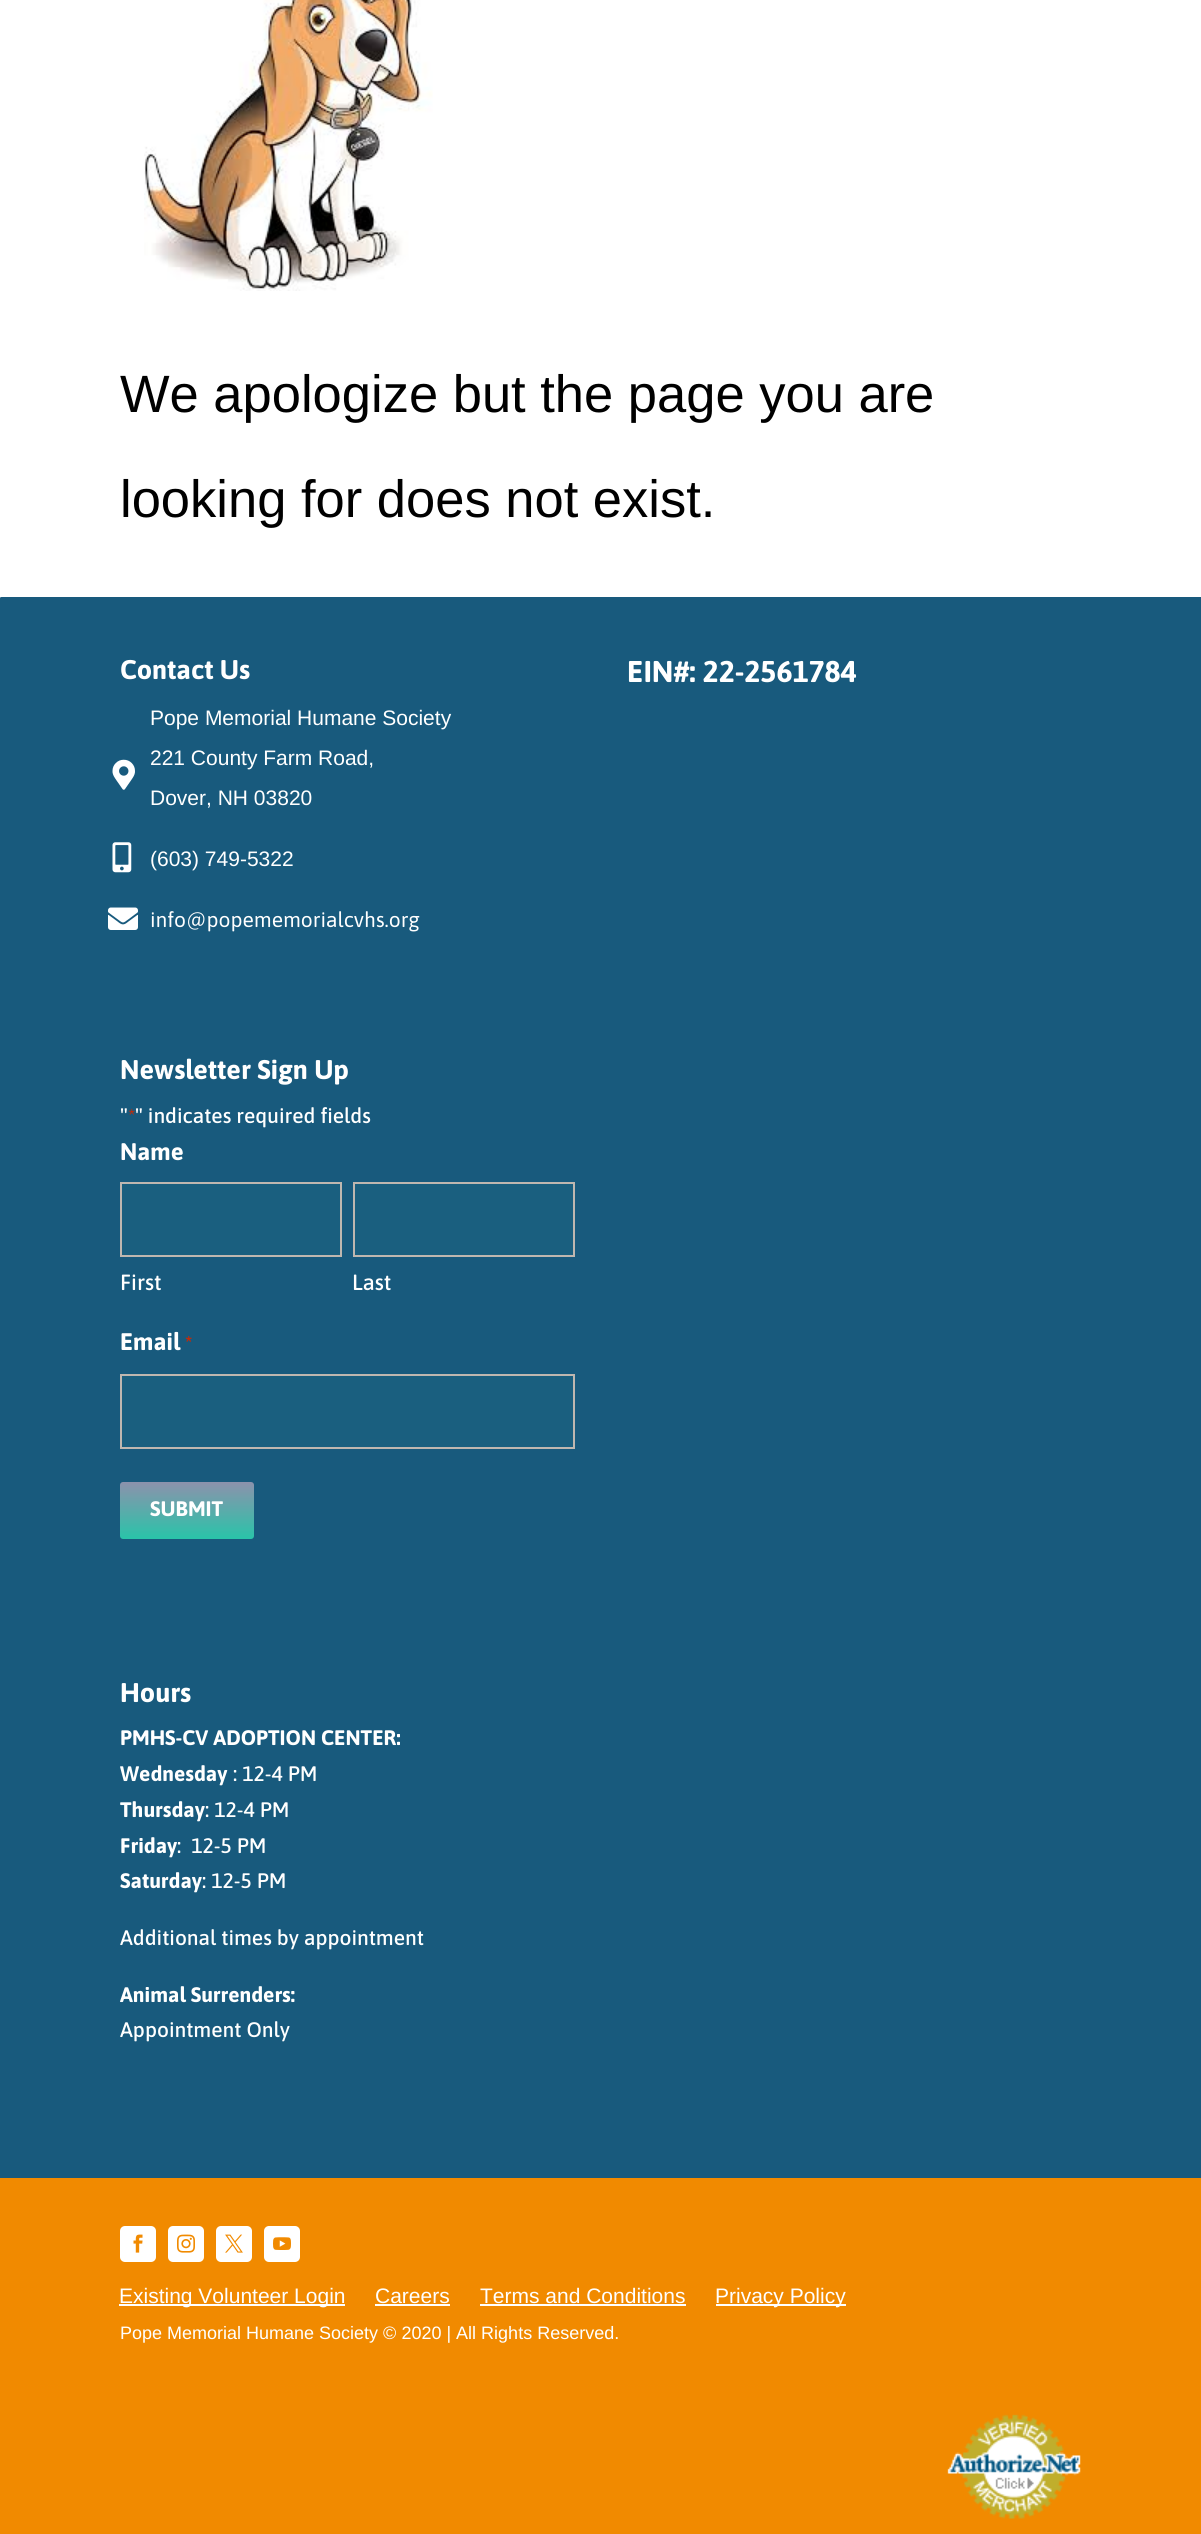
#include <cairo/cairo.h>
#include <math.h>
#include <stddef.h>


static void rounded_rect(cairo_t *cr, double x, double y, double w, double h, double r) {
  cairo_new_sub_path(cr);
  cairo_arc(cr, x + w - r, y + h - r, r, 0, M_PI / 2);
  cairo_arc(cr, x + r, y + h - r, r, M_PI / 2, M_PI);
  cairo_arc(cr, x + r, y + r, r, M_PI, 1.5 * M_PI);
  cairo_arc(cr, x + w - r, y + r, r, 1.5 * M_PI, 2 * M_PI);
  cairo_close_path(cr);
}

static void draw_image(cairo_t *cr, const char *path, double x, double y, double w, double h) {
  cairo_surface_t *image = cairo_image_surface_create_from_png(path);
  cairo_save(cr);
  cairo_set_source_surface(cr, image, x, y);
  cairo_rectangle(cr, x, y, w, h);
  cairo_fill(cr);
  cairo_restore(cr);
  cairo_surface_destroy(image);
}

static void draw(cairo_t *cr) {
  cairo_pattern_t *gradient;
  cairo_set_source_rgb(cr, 239 / 255.0, 239 / 255.0, 239 / 255.0);
  cairo_paint(cr);
  cairo_set_source_rgb(cr, 1, 1, 1);
  cairo_rectangle(cr, 0, 0, 1201, 597);
  cairo_fill(cr);
  draw_image(cr, "images/1.png", 144, 0, 289, 291);
  cairo_set_source_rgb(cr, 24 / 255.0, 90 / 255.0, 125 / 255.0);
  cairo_new_path(cr);
  cairo_move_to(cr, 1.5, 597);
  cairo_line_to(cr, 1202, 597);
  cairo_line_to(cr, 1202, 2178);
  cairo_line_to(cr, 0, 2178);
  cairo_line_to(cr, 0, 598.5);
  cairo_curve_to(cr, 0, 597.5, 0.5, 597, 1.5, 597);
  cairo_close_path(cr);
  cairo_fill(cr);
  draw_image(cr, "images/2.png", 112, 759, 23, 31);
  draw_image(cr, "images/3.png", 112, 842, 20, 31);
  draw_image(cr, "images/4.png", 108, 907, 30, 23);
  cairo_set_source_rgb(cr, 26 / 255.0, 95 / 255.0, 127 / 255.0);
  cairo_rectangle(cr, 121, 1183, 220, 73);
  cairo_fill_preserve(cr);
  cairo_set_source_rgb(cr, 191 / 255.0, 183 / 255.0, 176 / 255.0);
  cairo_stroke(cr);
  cairo_set_source_rgb(cr, 26 / 255.0, 95 / 255.0, 127 / 255.0);
  cairo_rectangle(cr, 354, 1183, 220, 73);
  cairo_fill_preserve(cr);
  cairo_set_source_rgb(cr, 191 / 255.0, 183 / 255.0, 176 / 255.0);
  cairo_stroke(cr);
  cairo_set_source_rgb(cr, 26 / 255.0, 95 / 255.0, 127 / 255.0);
  cairo_rectangle(cr, 121, 1375, 453, 73);
  cairo_fill_preserve(cr);
  cairo_set_source_rgb(cr, 191 / 255.0, 183 / 255.0, 176 / 255.0);
  cairo_stroke(cr);
  gradient = cairo_pattern_create_linear(187, 1482, 187, 1539);
  cairo_pattern_add_color_stop_rgba(gradient, 0, 140 / 255.0, 146 / 255.0, 172 / 255.0, 1);
  cairo_pattern_add_color_stop_rgba(gradient, 1, 41 / 255.0, 196 / 255.0, 169 / 255.0, 1);
  cairo_set_source(cr, gradient);
  cairo_pattern_destroy(gradient);
  rounded_rect(cr, 120, 1482, 134, 57, 3);
  cairo_fill(cr);
  cairo_set_source_rgb(cr, 241 / 255.0, 138 / 255.0, 0);
  cairo_rectangle(cr, 0, 2178, 1201, 356);
  cairo_fill(cr);
  cairo_set_source_rgb(cr, 1, 1, 1);
  rounded_rect(cr, 120, 2226, 36, 36, 5);
  cairo_fill(cr);
  draw_image(cr, "images/5.png", 133, 2234, 10, 19);
  rounded_rect(cr, 168, 2226, 36, 36, 5);
  cairo_fill(cr);
  draw_image(cr, "images/6.png", 177, 2234, 18, 19);
  rounded_rect(cr, 216, 2226, 36, 36, 5);
  cairo_fill(cr);
  draw_image(cr, "images/7.png", 225, 2234, 18, 19);
  rounded_rect(cr, 264, 2226, 36, 36, 5);
  cairo_fill(cr);
  draw_image(cr, "images/8.png", 273, 2237, 18, 13);
  cairo_rectangle(cr, 119, 2304, 226, 2);
  cairo_fill(cr);
  cairo_rectangle(cr, 375, 2304, 75, 2);
  cairo_fill(cr);
  cairo_rectangle(cr, 480, 2304, 206, 2);
  cairo_fill(cr);
  cairo_rectangle(cr, 716, 2304, 130, 2);
  cairo_fill(cr);
  draw_image(cr, "images/9.png", 947, 2414, 134, 105);
  cairo_select_font_face(cr, "Liberation Sans", CAIRO_FONT_SLANT_NORMAL, CAIRO_FONT_WEIGHT_NORMAL);
  cairo_set_font_size(cr, 52.5);
  cairo_set_source_rgb(cr, 0, 0, 0);
  cairo_move_to(cr, 120, 412);
  cairo_show_text(cr, "We apologize but the page you are");
  cairo_move_to(cr, 120, 517);
  cairo_show_text(cr, "looking for does not exist.");
  cairo_select_font_face(cr, "Asap", CAIRO_FONT_SLANT_NORMAL, CAIRO_FONT_WEIGHT_BOLD);
  cairo_set_font_size(cr, 27);
  cairo_set_source_rgb(cr, 1, 1, 1);
  cairo_move_to(cr, 120, 679);
  cairo_show_text(cr, "Contact Us");
  cairo_select_font_face(cr, "Liberation Sans", CAIRO_FONT_SLANT_NORMAL, CAIRO_FONT_WEIGHT_NORMAL);
  cairo_set_font_size(cr, 21);
  cairo_move_to(cr, 150, 725);
  cairo_show_text(cr, "Pope Memorial Humane Society");
  cairo_move_to(cr, 150, 765);
  cairo_show_text(cr, "221 County Farm Road,");
  cairo_move_to(cr, 150, 805);
  cairo_show_text(cr, "Dover, NH 03820");
  cairo_move_to(cr, 150, 866);
  cairo_show_text(cr, "(603) 749-5322");
  cairo_select_font_face(cr, "Asap", CAIRO_FONT_SLANT_NORMAL, CAIRO_FONT_WEIGHT_NORMAL);
  cairo_move_to(cr, 150, 927);
  cairo_show_text(cr, "info@popememorialcvhs.org");
  cairo_select_font_face(cr, "Asap", CAIRO_FONT_SLANT_NORMAL, CAIRO_FONT_WEIGHT_BOLD);
  cairo_set_font_size(cr, 30);
  cairo_move_to(cr, 627, 682);
  cairo_show_text(cr, "EIN#: 22-2561784");
  cairo_set_font_size(cr, 27);
  cairo_move_to(cr, 120, 1079);
  cairo_show_text(cr, "Newsletter Sign Up");
  cairo_select_font_face(cr, "Asap Medium", CAIRO_FONT_SLANT_NORMAL, CAIRO_FONT_WEIGHT_NORMAL);
  cairo_set_font_size(cr, 21);
  cairo_move_to(cr, 120, 1123);
  cairo_show_text(cr, "\"");
  cairo_set_font_size(cr, 20);
  cairo_set_source_rgb(cr, 192 / 255.0, 43 / 255.0, 10 / 255.0);
  cairo_move_to(cr, 128, 1123);
  cairo_show_text(cr, "*");
  cairo_set_font_size(cr, 21);
  cairo_set_source_rgb(cr, 1, 1, 1);
  cairo_move_to(cr, 135, 1123);
  cairo_show_text(cr, "\" indicates required fields");
  cairo_select_font_face(cr, "Asap", CAIRO_FONT_SLANT_NORMAL, CAIRO_FONT_WEIGHT_BOLD);
  cairo_set_font_size(cr, 24);
  cairo_move_to(cr, 120, 1160);
  cairo_show_text(cr, "Name");
  cairo_select_font_face(cr, "Asap Medium", CAIRO_FONT_SLANT_NORMAL, CAIRO_FONT_WEIGHT_NORMAL);
  cairo_set_font_size(cr, 22);
  cairo_move_to(cr, 120, 1290);
  cairo_show_text(cr, "First");
  cairo_move_to(cr, 352, 1290);
  cairo_show_text(cr, "Last");
  cairo_select_font_face(cr, "Asap", CAIRO_FONT_SLANT_NORMAL, CAIRO_FONT_WEIGHT_BOLD);
  cairo_set_font_size(cr, 24);
  cairo_move_to(cr, 120, 1350);
  cairo_show_text(cr, "Email");
  cairo_set_font_size(cr, 20);
  cairo_set_source_rgb(cr, 192 / 255.0, 43 / 255.0, 10 / 255.0);
  cairo_move_to(cr, 185, 1350);
  cairo_show_text(cr, "*");
  cairo_set_font_size(cr, 21);
  cairo_set_source_rgb(cr, 1, 1, 1);
  cairo_move_to(cr, 150, 1516);
  cairo_show_text(cr, "SUBMIT");
  cairo_set_font_size(cr, 27);
  cairo_move_to(cr, 120, 1702);
  cairo_show_text(cr, "Hours");
  cairo_set_font_size(cr, 21);
  cairo_move_to(cr, 120, 1745);
  cairo_show_text(cr, "PMHS-CV ADOPTION CENTER:");
  cairo_move_to(cr, 120, 1781);
  cairo_show_text(cr, "Wednesday");
  cairo_select_font_face(cr, "Asap Medium", CAIRO_FONT_SLANT_NORMAL, CAIRO_FONT_WEIGHT_NORMAL);
  cairo_move_to(cr, 233, 1781);
  cairo_show_text(cr, ": 12-4 PM");
  cairo_select_font_face(cr, "Asap", CAIRO_FONT_SLANT_NORMAL, CAIRO_FONT_WEIGHT_BOLD);
  cairo_move_to(cr, 120, 1817);
  cairo_show_text(cr, "Thursday");
  cairo_select_font_face(cr, "Asap Medium", CAIRO_FONT_SLANT_NORMAL, CAIRO_FONT_WEIGHT_NORMAL);
  cairo_move_to(cr, 205, 1817);
  cairo_show_text(cr, ": 12-4 PM");
  cairo_select_font_face(cr, "Asap", CAIRO_FONT_SLANT_NORMAL, CAIRO_FONT_WEIGHT_BOLD);
  cairo_move_to(cr, 120, 1853);
  cairo_show_text(cr, "Friday");
  cairo_select_font_face(cr, "Asap Medium", CAIRO_FONT_SLANT_NORMAL, CAIRO_FONT_WEIGHT_NORMAL);
  cairo_move_to(cr, 177, 1853);
  cairo_show_text(cr, ":  12-5 PM");
  cairo_select_font_face(cr, "Asap", CAIRO_FONT_SLANT_NORMAL, CAIRO_FONT_WEIGHT_BOLD);
  cairo_move_to(cr, 120, 1888);
  cairo_show_text(cr, "Saturday");
  cairo_select_font_face(cr, "Asap Medium", CAIRO_FONT_SLANT_NORMAL, CAIRO_FONT_WEIGHT_NORMAL);
  cairo_move_to(cr, 202, 1888);
  cairo_show_text(cr, ": 12-5 PM");
  cairo_move_to(cr, 120, 1945);
  cairo_show_text(cr, "Additional times by appointment");
  cairo_select_font_face(cr, "Asap", CAIRO_FONT_SLANT_NORMAL, CAIRO_FONT_WEIGHT_BOLD);
  cairo_move_to(cr, 120, 2002);
  cairo_show_text(cr, "Animal Surrenders:");
  cairo_select_font_face(cr, "Asap Medium", CAIRO_FONT_SLANT_NORMAL, CAIRO_FONT_WEIGHT_NORMAL);
  cairo_move_to(cr, 120, 2037);
  cairo_show_text(cr, "Appointment Only");
  cairo_select_font_face(cr, "Liberation Sans", CAIRO_FONT_SLANT_NORMAL, CAIRO_FONT_WEIGHT_NORMAL);
  cairo_move_to(cr, 119, 2303);
  cairo_show_text(cr, "Existing Volunteer Login");
  cairo_move_to(cr, 375, 2303);
  cairo_show_text(cr, "Careers");
  cairo_move_to(cr, 480, 2303);
  cairo_show_text(cr, "Terms and Conditions");
  cairo_move_to(cr, 715, 2303);
  cairo_show_text(cr, "Privacy Policy");
  cairo_set_font_size(cr, 18);
  cairo_move_to(cr, 120, 2339);
  cairo_show_text(cr, "Pope Memorial Humane Society © 2020 | All Rights Reserved.");
}

int main(void) {
  cairo_surface_t *surface = cairo_image_surface_create(CAIRO_FORMAT_RGB24, 1201, 2534);
  cairo_t *cr = cairo_create(surface);
  cairo_font_options_t *options = cairo_font_options_create();
  cairo_font_options_set_hint_metrics(options, CAIRO_HINT_METRICS_OFF);
  cairo_font_options_set_hint_style(options, CAIRO_HINT_STYLE_NONE);
  cairo_set_font_options(cr, options);
  cairo_set_miter_limit(cr, 4);
  draw(cr);
  cairo_surface_write_to_png(surface, "out.png");
  cairo_font_options_destroy(options);
  cairo_destroy(cr);
  cairo_surface_destroy(surface);
  return 0;
}
